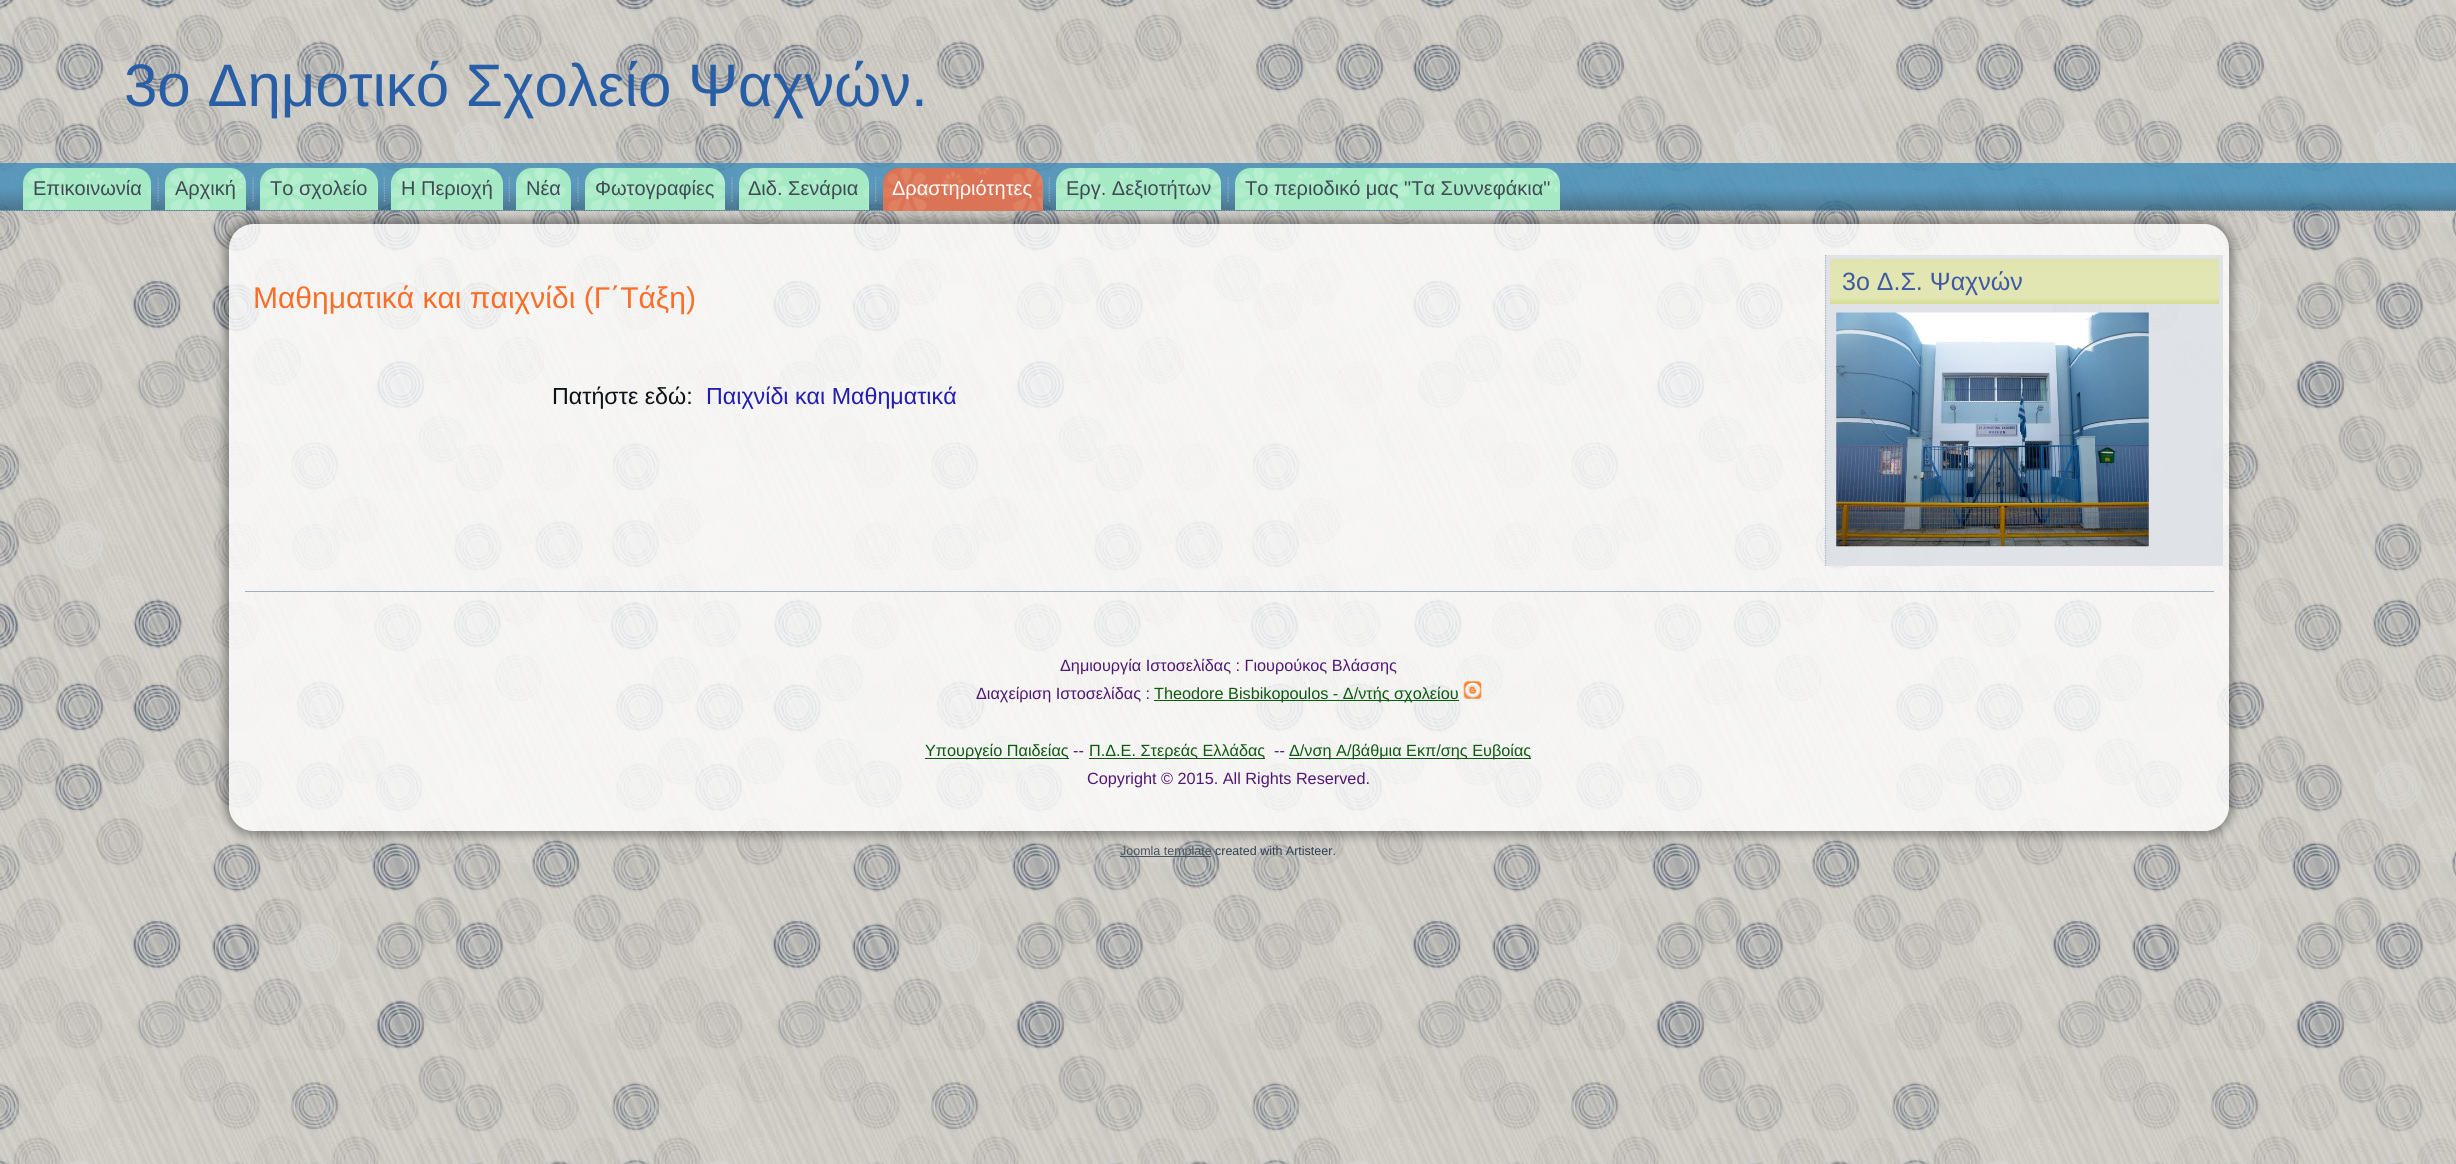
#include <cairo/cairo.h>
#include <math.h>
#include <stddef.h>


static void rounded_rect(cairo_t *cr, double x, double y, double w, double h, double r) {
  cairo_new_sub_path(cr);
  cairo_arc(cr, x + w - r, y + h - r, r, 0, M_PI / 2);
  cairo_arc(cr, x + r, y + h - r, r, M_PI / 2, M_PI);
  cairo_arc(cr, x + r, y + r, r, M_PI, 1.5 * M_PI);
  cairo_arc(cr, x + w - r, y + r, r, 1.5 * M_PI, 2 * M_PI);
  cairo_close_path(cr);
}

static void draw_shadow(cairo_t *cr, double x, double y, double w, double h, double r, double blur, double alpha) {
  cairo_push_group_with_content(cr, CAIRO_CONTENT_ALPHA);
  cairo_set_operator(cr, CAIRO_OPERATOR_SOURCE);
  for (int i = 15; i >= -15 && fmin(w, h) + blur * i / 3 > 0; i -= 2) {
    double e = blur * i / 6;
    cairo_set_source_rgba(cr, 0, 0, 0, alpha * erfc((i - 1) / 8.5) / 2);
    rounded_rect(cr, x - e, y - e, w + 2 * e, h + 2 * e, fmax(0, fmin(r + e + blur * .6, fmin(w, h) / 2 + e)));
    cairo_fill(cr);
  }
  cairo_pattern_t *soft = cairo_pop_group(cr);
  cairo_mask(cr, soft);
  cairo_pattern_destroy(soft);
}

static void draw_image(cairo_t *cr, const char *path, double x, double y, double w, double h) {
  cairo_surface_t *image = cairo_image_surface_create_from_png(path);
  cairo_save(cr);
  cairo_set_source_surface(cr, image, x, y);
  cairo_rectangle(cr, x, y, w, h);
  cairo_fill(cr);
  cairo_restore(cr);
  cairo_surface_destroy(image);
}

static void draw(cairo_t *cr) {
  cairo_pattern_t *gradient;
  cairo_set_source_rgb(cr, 138 / 255.0, 153 / 255.0, 168 / 255.0);
  cairo_paint(cr);
  draw_image(cr, "images/1.png", 0, 0, 2456, 1164);
  cairo_save(cr);
  cairo_set_fill_rule(cr, CAIRO_FILL_RULE_EVEN_ODD);
  cairo_new_path(cr);
  cairo_move_to(cr, 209, 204);
  cairo_line_to(cr, 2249, 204);
  cairo_line_to(cr, 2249, 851);
  cairo_line_to(cr, 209, 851);
  cairo_close_path(cr);
  cairo_move_to(cr, 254, 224);
  cairo_line_to(cr, 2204, 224);
  cairo_curve_to(cr, 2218, 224, 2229, 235, 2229, 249);
  cairo_line_to(cr, 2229, 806);
  cairo_curve_to(cr, 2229, 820, 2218, 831, 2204, 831);
  cairo_line_to(cr, 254, 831);
  cairo_curve_to(cr, 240, 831, 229, 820, 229, 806);
  cairo_line_to(cr, 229, 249);
  cairo_curve_to(cr, 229, 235, 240, 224, 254, 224);
  cairo_close_path(cr);
  cairo_clip(cr);
  cairo_set_source_rgb(cr, 0, 0, 0);
  draw_shadow(cr, 224, 219, 2010, 617, 30, 4.5, 0.32);
  cairo_restore(cr);
  gradient = cairo_pattern_create_linear(1228, 162, 1228, 211);
  cairo_pattern_add_color_stop_rgba(gradient, 0, 61 / 255.0, 139 / 255.0, 184 / 255.0, 0.8);
  cairo_pattern_add_color_stop_rgba(gradient, 0.5, 61 / 255.0, 139 / 255.0, 184 / 255.0, 0.8);
  cairo_pattern_add_color_stop_rgba(gradient, 0.6, 59 / 255.0, 133 / 255.0, 176 / 255.0, 0.8);
  cairo_pattern_add_color_stop_rgba(gradient, 1, 42 / 255.0, 95 / 255.0, 126 / 255.0, 0.8);
  cairo_set_source(cr, gradient);
  cairo_pattern_destroy(gradient);
  cairo_rectangle(cr, 0, 163, 2456, 48);
  cairo_fill(cr);
  cairo_new_path(cr);
  cairo_move_to(cr, 0, 210.5);
  cairo_line_to(cr, 2456, 210.5);
  cairo_set_source_rgba(cr, 163 / 255.0, 180 / 255.0, 200 / 255.0, 0.8);
  cairo_set_line_width(cr, 1.2);
  cairo_set_dash(cr, (double[]){1.25, 1.25}, 2, 0);
  cairo_stroke(cr);
  cairo_set_source_rgb(cr, 180 / 255.0, 238 / 255.0, 207 / 255.0);
  cairo_new_path(cr);
  cairo_move_to(cr, 39, 168);
  cairo_line_to(cr, 135, 168);
  cairo_curve_to(cr, 144, 168, 151, 175, 151, 184);
  cairo_line_to(cr, 151, 210);
  cairo_line_to(cr, 23, 210);
  cairo_line_to(cr, 23, 184);
  cairo_curve_to(cr, 23, 175, 30, 168, 39, 168);
  cairo_close_path(cr);
  cairo_fill(cr);
  draw_image(cr, "images/2.png", 23, 167, 128, 43);
  draw_image(cr, "images/3.png", 157, 177, 2, 25);
  cairo_new_path(cr);
  cairo_move_to(cr, 181, 168);
  cairo_line_to(cr, 230, 168);
  cairo_curve_to(cr, 239, 168, 246, 175, 246, 184);
  cairo_line_to(cr, 246, 210);
  cairo_line_to(cr, 165, 210);
  cairo_line_to(cr, 165, 184);
  cairo_curve_to(cr, 165, 175, 172, 168, 181, 168);
  cairo_close_path(cr);
  cairo_fill(cr);
  draw_image(cr, "images/4.png", 165, 167, 81, 43);
  draw_image(cr, "images/5.png", 252, 177, 2, 25);
  cairo_new_path(cr);
  cairo_move_to(cr, 276, 168);
  cairo_line_to(cr, 362, 168);
  cairo_curve_to(cr, 371, 168, 378, 175, 378, 184);
  cairo_line_to(cr, 378, 210);
  cairo_line_to(cr, 260, 210);
  cairo_line_to(cr, 260, 184);
  cairo_curve_to(cr, 260, 175, 267, 168, 276, 168);
  cairo_close_path(cr);
  cairo_fill(cr);
  draw_image(cr, "images/6.png", 260, 167, 118, 43);
  draw_image(cr, "images/7.png", 383, 177, 2, 25);
  cairo_new_path(cr);
  cairo_move_to(cr, 407, 168);
  cairo_line_to(cr, 487, 168);
  cairo_curve_to(cr, 496, 168, 503, 175, 503, 184);
  cairo_line_to(cr, 503, 210);
  cairo_line_to(cr, 391, 210);
  cairo_line_to(cr, 391, 184);
  cairo_curve_to(cr, 391, 175, 398, 168, 407, 168);
  cairo_close_path(cr);
  cairo_fill(cr);
  draw_image(cr, "images/8.png", 391, 167, 112, 43);
  draw_image(cr, "images/9.png", 508, 177, 2, 25);
  cairo_new_path(cr);
  cairo_move_to(cr, 532, 168);
  cairo_line_to(cr, 555, 168);
  cairo_curve_to(cr, 564, 168, 571, 175, 571, 184);
  cairo_line_to(cr, 571, 210);
  cairo_line_to(cr, 516, 210);
  cairo_line_to(cr, 516, 184);
  cairo_curve_to(cr, 516, 175, 523, 168, 532, 168);
  cairo_close_path(cr);
  cairo_fill(cr);
  draw_image(cr, "images/10.png", 516, 167, 55, 43);
  draw_image(cr, "images/11.png", 577, 177, 2, 25);
  cairo_new_path(cr);
  cairo_move_to(cr, 601, 168);
  cairo_line_to(cr, 709, 168);
  cairo_curve_to(cr, 718, 168, 725, 175, 725, 184);
  cairo_line_to(cr, 725, 210);
  cairo_line_to(cr, 585, 210);
  cairo_line_to(cr, 585, 184);
  cairo_curve_to(cr, 585, 175, 592, 168, 601, 168);
  cairo_close_path(cr);
  cairo_fill(cr);
  draw_image(cr, "images/12.png", 585, 167, 140, 43);
  draw_image(cr, "images/13.png", 731, 177, 2, 25);
  cairo_new_path(cr);
  cairo_move_to(cr, 755, 168);
  cairo_line_to(cr, 853, 168);
  cairo_curve_to(cr, 862, 168, 869, 175, 869, 184);
  cairo_line_to(cr, 869, 210);
  cairo_line_to(cr, 739, 210);
  cairo_line_to(cr, 739, 184);
  cairo_curve_to(cr, 739, 175, 746, 168, 755, 168);
  cairo_close_path(cr);
  cairo_fill(cr);
  draw_image(cr, "images/14.png", 739, 167, 130, 43);
  draw_image(cr, "images/15.png", 875, 177, 2, 25);
  cairo_set_source_rgb(cr, 222 / 255.0, 126 / 255.0, 94 / 255.0);
  cairo_new_path(cr);
  cairo_move_to(cr, 899, 168);
  cairo_line_to(cr, 1027, 168);
  cairo_curve_to(cr, 1036, 168, 1043, 175, 1043, 184);
  cairo_line_to(cr, 1043, 211);
  cairo_line_to(cr, 883, 211);
  cairo_line_to(cr, 883, 184);
  cairo_curve_to(cr, 883, 175, 890, 168, 899, 168);
  cairo_close_path(cr);
  cairo_fill(cr);
  draw_image(cr, "images/16.png", 882, 167, 160, 44);
  draw_image(cr, "images/17.png", 1048, 177, 2, 25);
  cairo_set_source_rgb(cr, 180 / 255.0, 238 / 255.0, 207 / 255.0);
  cairo_new_path(cr);
  cairo_move_to(cr, 1072, 168);
  cairo_line_to(cr, 1205, 168);
  cairo_curve_to(cr, 1214, 168, 1221, 175, 1221, 184);
  cairo_line_to(cr, 1221, 210);
  cairo_line_to(cr, 1056, 210);
  cairo_line_to(cr, 1056, 184);
  cairo_curve_to(cr, 1056, 175, 1063, 168, 1072, 168);
  cairo_close_path(cr);
  cairo_fill(cr);
  draw_image(cr, "images/18.png", 1056, 167, 165, 43);
  draw_image(cr, "images/19.png", 1227, 177, 2, 25);
  cairo_new_path(cr);
  cairo_move_to(cr, 1251, 168);
  cairo_line_to(cr, 1544, 168);
  cairo_curve_to(cr, 1553, 168, 1560, 175, 1560, 184);
  cairo_line_to(cr, 1560, 210);
  cairo_line_to(cr, 1235, 210);
  cairo_line_to(cr, 1235, 184);
  cairo_curve_to(cr, 1235, 175, 1242, 168, 1251, 168);
  cairo_close_path(cr);
  cairo_fill(cr);
  draw_image(cr, "images/20.png", 1235, 167, 325, 43);
  cairo_set_source_rgba(cr, 1, 1, 1, 0.8);
  rounded_rect(cr, 229, 224, 2000, 607, 25);
  cairo_fill(cr);
  cairo_set_source_rgba(cr, 217 / 255.0, 222 / 255.0, 227 / 255.0, 0.8);
  cairo_rectangle(cr, 1825, 255, 398, 311);
  cairo_fill(cr);
  cairo_new_path(cr);
  cairo_move_to(cr, 1825.5, 255);
  cairo_line_to(cr, 1825.5, 566);
  cairo_set_source_rgb(cr, 163 / 255.0, 180 / 255.0, 200 / 255.0);
  cairo_stroke(cr);
  gradient = cairo_pattern_create_linear(2024, 259, 2024, 304);
  cairo_pattern_add_color_stop_rgba(gradient, 0, 224 / 255.0, 228 / 255.0, 175 / 255.0, 1);
  cairo_pattern_add_color_stop_rgba(gradient, 0.4, 225 / 255.0, 230 / 255.0, 179 / 255.0, 1);
  cairo_pattern_add_color_stop_rgba(gradient, 0.85, 225 / 255.0, 230 / 255.0, 179 / 255.0, 1);
  cairo_pattern_add_color_stop_rgba(gradient, 1, 213 / 255.0, 219 / 255.0, 148 / 255.0, 1);
  cairo_set_source(cr, gradient);
  cairo_pattern_destroy(gradient);
  cairo_rectangle(cr, 1830, 259, 389, 45);
  cairo_fill(cr);
  draw_image(cr, "images/21.png", 1836, 312, 313, 235);
  cairo_set_source_rgb(cr, 156 / 255.0, 175 / 255.0, 196 / 255.0);
  cairo_rectangle(cr, 245, 591, 1969, 1);
  cairo_fill(cr);
  cairo_set_source_rgb(cr, 13 / 255.0, 89 / 255.0, 15 / 255.0);
  cairo_rectangle(cr, 1154, 700, 305, 1);
  cairo_fill(cr);
  draw_image(cr, "images/22.png", 1463, 681, 19, 18);
  cairo_rectangle(cr, 925, 758, 144, 1);
  cairo_fill(cr);
  cairo_rectangle(cr, 1089, 758, 176, 1);
  cairo_fill(cr);
  cairo_rectangle(cr, 1289, 758, 242, 1);
  cairo_fill(cr);
  cairo_set_source_rgb(cr, 72 / 255.0, 84 / 255.0, 97 / 255.0);
  cairo_rectangle(cr, 1120, 856, 91, 1);
  cairo_fill(cr);
  cairo_select_font_face(cr, "Liberation Sans", CAIRO_FONT_SLANT_NORMAL, CAIRO_FONT_WEIGHT_NORMAL);
  cairo_set_font_size(cr, 60);
  cairo_set_source_rgb(cr, 39 / 255.0, 94 / 255.0, 165 / 255.0);
  cairo_move_to(cr, 124, 106);
  cairo_show_text(cr, "3ο Δημοτικό Σχολείο Ψαχνών.");
  cairo_set_font_size(cr, 20);
  cairo_set_source_rgb(cr, 63 / 255.0, 74 / 255.0, 85 / 255.0);
  cairo_move_to(cr, 33, 195);
  cairo_show_text(cr, "Επικοινωνία");
  cairo_move_to(cr, 175, 195);
  cairo_show_text(cr, "Αρχική");
  cairo_move_to(cr, 270, 195);
  cairo_show_text(cr, "Το σχολείο");
  cairo_move_to(cr, 401, 195);
  cairo_show_text(cr, "Η Περιοχή");
  cairo_move_to(cr, 526, 195);
  cairo_show_text(cr, "Νέα");
  cairo_move_to(cr, 595, 195);
  cairo_show_text(cr, "Φωτογραφίες");
  cairo_move_to(cr, 748, 195);
  cairo_show_text(cr, "Διδ. Σενάρια");
  cairo_set_source_rgb(cr, 1, 1, 1);
  cairo_move_to(cr, 892, 195);
  cairo_show_text(cr, "Δραστηριότητες");
  cairo_set_source_rgb(cr, 63 / 255.0, 74 / 255.0, 85 / 255.0);
  cairo_move_to(cr, 1066, 195);
  cairo_show_text(cr, "Εργ. Δεξιοτήτων");
  cairo_move_to(cr, 1245, 195);
  cairo_show_text(cr, "Το περιοδικό μας \"Τα Συννεφάκια\"");
  cairo_set_font_size(cr, 30);
  cairo_set_source_rgb(cr, 251 / 255.0, 110 / 255.0, 40 / 255.0);
  cairo_move_to(cr, 253, 308);
  cairo_show_text(cr, "Μαθηματικά και παιχνίδι (Γ΄Τάξη)");
  cairo_set_font_size(cr, 23.25);
  cairo_set_source_rgb(cr, 13 / 255.0, 18 / 255.0, 22 / 255.0);
  cairo_move_to(cr, 552, 404);
  cairo_show_text(cr, "Πατήστε εδώ:");
  cairo_set_source_rgb(cr, 35 / 255.0, 28 / 255.0, 176 / 255.0);
  cairo_move_to(cr, 706, 404);
  cairo_show_text(cr, "Παιχνίδι και Μαθηματικά");
  cairo_set_font_size(cr, 25);
  cairo_set_source_rgb(cr, 63 / 255.0, 89 / 255.0, 162 / 255.0);
  cairo_move_to(cr, 1842, 290);
  cairo_show_text(cr, "3o Δ.Σ. Ψαχνών");
  cairo_set_font_size(cr, 16.25);
  cairo_set_source_rgb(cr, 81 / 255.0, 23 / 255.0, 115 / 255.0);
  cairo_move_to(cr, 1060, 671);
  cairo_show_text(cr, "Δημιουργία Ιστοσελίδας : Γιουρούκος Βλάσσης");
  cairo_move_to(cr, 976, 699);
  cairo_show_text(cr, "Διαχείριση Ιστοσελίδας :");
  cairo_set_source_rgb(cr, 13 / 255.0, 89 / 255.0, 15 / 255.0);
  cairo_move_to(cr, 1154, 699);
  cairo_show_text(cr, "Theodore Bisbikopoulos - Δ/ντής σχολείου");
  cairo_move_to(cr, 925, 756);
  cairo_show_text(cr, "Υπουργείο Παιδείας");
  cairo_set_source_rgb(cr, 81 / 255.0, 23 / 255.0, 115 / 255.0);
  cairo_move_to(cr, 1073, 756);
  cairo_show_text(cr, "--");
  cairo_set_source_rgb(cr, 13 / 255.0, 89 / 255.0, 15 / 255.0);
  cairo_move_to(cr, 1089, 756);
  cairo_show_text(cr, "Π.Δ.Ε. Στερεάς Ελλάδας");
  cairo_set_source_rgb(cr, 81 / 255.0, 23 / 255.0, 115 / 255.0);
  cairo_move_to(cr, 1274, 756);
  cairo_show_text(cr, "--");
  cairo_set_source_rgb(cr, 13 / 255.0, 89 / 255.0, 15 / 255.0);
  cairo_move_to(cr, 1289, 756);
  cairo_show_text(cr, "Δ/νση Α/βάθμια Εκπ/σης Ευβοίας");
  cairo_set_source_rgb(cr, 81 / 255.0, 23 / 255.0, 115 / 255.0);
  cairo_move_to(cr, 1087, 784);
  cairo_show_text(cr, "Copyright © 2015. All Rights Reserved.");
  cairo_set_font_size(cr, 12.5);
  cairo_set_source_rgb(cr, 72 / 255.0, 84 / 255.0, 97 / 255.0);
  cairo_move_to(cr, 1120, 855);
  cairo_show_text(cr, "Joomla template");
  cairo_set_source_rgb(cr, 48 / 255.0, 63 / 255.0, 80 / 255.0);
  cairo_move_to(cr, 1215, 855);
  cairo_show_text(cr, "created with Artisteer.");
}

int main(void) {
  cairo_surface_t *surface = cairo_image_surface_create(CAIRO_FORMAT_RGB24, 2456, 1164);
  cairo_t *cr = cairo_create(surface);
  cairo_font_options_t *options = cairo_font_options_create();
  cairo_font_options_set_hint_metrics(options, CAIRO_HINT_METRICS_OFF);
  cairo_font_options_set_hint_style(options, CAIRO_HINT_STYLE_NONE);
  cairo_set_font_options(cr, options);
  cairo_set_miter_limit(cr, 4);
  draw(cr);
  cairo_surface_write_to_png(surface, "out.png");
  cairo_font_options_destroy(options);
  cairo_destroy(cr);
  cairo_surface_destroy(surface);
  return 0;
}
